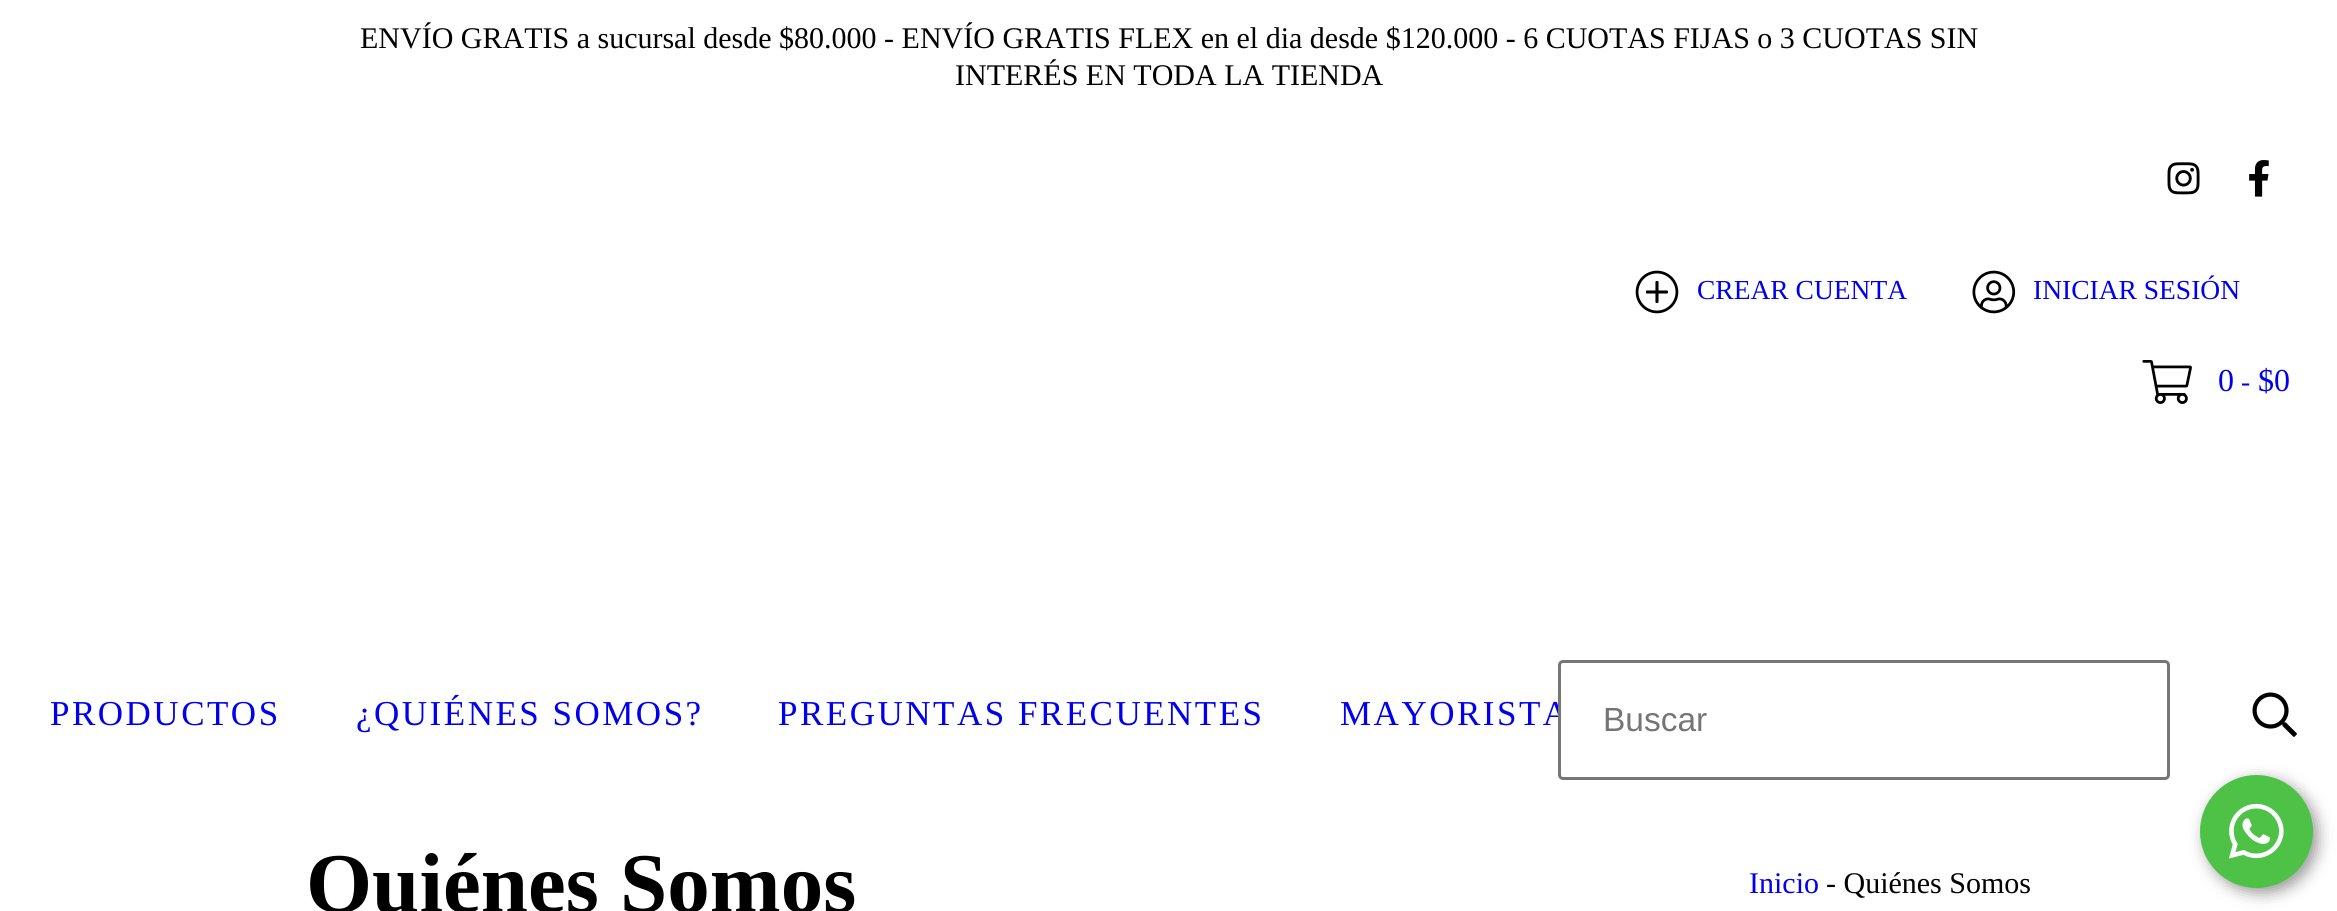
#include <cairo/cairo.h>
#include <math.h>
#include <stddef.h>


static void draw_spaced(cairo_t *cr, double x, double y, const char *s, double letter, double word) {
  cairo_move_to(cr, x, y);
  while (*s) {
    char ch[5] = {0};
    int n = 0;
    do ch[n++] = *s++; while ((*s & 0xC0) == 0x80);
    cairo_show_text(cr, ch);
    cairo_rel_move_to(cr, letter + word * (*ch == ' '), 0);
  }
}

static void rounded_rect(cairo_t *cr, double x, double y, double w, double h, double r) {
  cairo_new_sub_path(cr);
  cairo_arc(cr, x + w - r, y + h - r, r, 0, M_PI / 2);
  cairo_arc(cr, x + r, y + h - r, r, M_PI / 2, M_PI);
  cairo_arc(cr, x + r, y + r, r, M_PI, 1.5 * M_PI);
  cairo_arc(cr, x + w - r, y + r, r, 1.5 * M_PI, 2 * M_PI);
  cairo_close_path(cr);
}

static void draw_shadow(cairo_t *cr, double x, double y, double w, double h, double r, double blur, double alpha) {
  cairo_push_group_with_content(cr, CAIRO_CONTENT_ALPHA);
  cairo_set_operator(cr, CAIRO_OPERATOR_SOURCE);
  for (int i = 15; i >= -15 && fmin(w, h) + blur * i / 3 > 0; i -= 2) {
    double e = blur * i / 6;
    cairo_set_source_rgba(cr, 0, 0, 0, alpha * erfc((i - 1) / 8.5) / 2);
    rounded_rect(cr, x - e, y - e, w + 2 * e, h + 2 * e, fmax(0, fmin(r + e + blur * .6, fmin(w, h) / 2 + e)));
    cairo_fill(cr);
  }
  cairo_pattern_t *soft = cairo_pop_group(cr);
  cairo_mask(cr, soft);
  cairo_pattern_destroy(soft);
}

static void draw_image(cairo_t *cr, const char *path, double x, double y, double w, double h) {
  cairo_surface_t *image = cairo_image_surface_create_from_png(path);
  cairo_save(cr);
  cairo_set_source_surface(cr, image, x, y);
  cairo_rectangle(cr, x, y, w, h);
  cairo_fill(cr);
  cairo_restore(cr);
  cairo_surface_destroy(image);
}

static void draw(cairo_t *cr) {
  cairo_set_source_rgb(cr, 1, 1, 1);
  cairo_paint(cr);
  draw_image(cr, "images/1.png", 2167, 162, 33, 33);
  draw_image(cr, "images/2.png", 2249, 160, 20, 37);
  draw_image(cr, "images/3.png", 1635, 270, 44, 44);
  draw_image(cr, "images/4.png", 1972, 270, 44, 44);
  draw_image(cr, "images/5.png", 2142, 360, 50, 44);
  draw_image(cr, "images/6.png", 2252, 692, 45, 45);
  cairo_set_source_rgb(cr, 0, 0, 0);
  draw_shadow(cr, 2205, 780, 113, 113, 56.5, 7.5, 0.4);
  cairo_set_source_rgb(cr, 77 / 255.0, 194 / 255.0, 71 / 255.0);
  cairo_arc(cr, 2256.5, 831.5, 56.5, 0, 2 * M_PI);
  cairo_fill(cr);
  draw_image(cr, "images/7.png", 2229, 803, 55, 56);
  cairo_select_font_face(cr, "Liberation Serif", CAIRO_FONT_SLANT_NORMAL, CAIRO_FONT_WEIGHT_NORMAL);
  cairo_set_font_size(cr, 30);
  cairo_set_source_rgb(cr, 0, 0, 0);
  cairo_move_to(cr, 360, 48);
  cairo_show_text(cr, "ENVÍO GRATIS a sucursal desde $80.000 - ENVÍO GRATIS FLEX en el dia desde $120.000 - 6 CUOTAS FIJAS o 3 CUOTAS SIN");
  cairo_move_to(cr, 955, 85);
  cairo_show_text(cr, "INTERÉS EN TODA LA TIENDA");
  cairo_set_font_size(cr, 27.5);
  cairo_set_source_rgb(cr, 0, 0, 238 / 255.0);
  cairo_move_to(cr, 1697, 299);
  cairo_show_text(cr, "CREAR CUENTA");
  cairo_move_to(cr, 2033, 299);
  cairo_show_text(cr, "INICIAR SESIÓN");
  cairo_set_font_size(cr, 32);
  cairo_move_to(cr, 2218, 391);
  cairo_show_text(cr, "0");
  cairo_set_font_size(cr, 27.5);
  cairo_move_to(cr, 2241, 391);
  cairo_show_text(cr, "-");
  cairo_set_font_size(cr, 32);
  cairo_move_to(cr, 2258, 391);
  cairo_show_text(cr, "$0");
  cairo_set_font_size(cr, 35);
  draw_spaced(cr, 50, 725, "PRODUCTOS", 2.5, 0);
  draw_spaced(cr, 356, 725, "¿QUIÉNES SOMOS?", 2.5, 0);
  draw_spaced(cr, 778, 725, "PREGUNTAS FRECUENTES", 2.5, 0);
  draw_spaced(cr, 1340, 725, "MAYORISTA", 2.5, 0);
  cairo_set_source_rgb(cr, 1, 1, 1);
  rounded_rect(cr, 1559.5, 661.5, 609, 117, 3.5);
  cairo_fill_preserve(cr);
  cairo_set_source_rgb(cr, 118 / 255.0, 118 / 255.0, 118 / 255.0);
  cairo_set_line_width(cr, 3);
  cairo_stroke(cr);
  cairo_select_font_face(cr, "Liberation Sans", CAIRO_FONT_SLANT_NORMAL, CAIRO_FONT_WEIGHT_NORMAL);
  cairo_set_font_size(cr, 33.5);
  cairo_set_source_rgb(cr, 117 / 255.0, 117 / 255.0, 117 / 255.0);
  cairo_move_to(cr, 1603, 731);
  cairo_show_text(cr, "Buscar");
  cairo_select_font_face(cr, "Liberation Serif", CAIRO_FONT_SLANT_NORMAL, CAIRO_FONT_WEIGHT_BOLD);
  cairo_set_font_size(cr, 85);
  cairo_set_source_rgb(cr, 0, 0, 0);
  cairo_move_to(cr, 306, 912);
  cairo_show_text(cr, "Quiénes Somos");
  cairo_select_font_face(cr, "Liberation Serif", CAIRO_FONT_SLANT_NORMAL, CAIRO_FONT_WEIGHT_NORMAL);
  cairo_set_font_size(cr, 30);
  cairo_set_source_rgb(cr, 0, 0, 238 / 255.0);
  cairo_move_to(cr, 1749, 893);
  cairo_show_text(cr, "Inicio");
  cairo_set_source_rgb(cr, 0, 0, 0);
  cairo_move_to(cr, 1826, 893);
  cairo_show_text(cr, "- Quiénes Somos");
}

int main(void) {
  cairo_surface_t *surface = cairo_image_surface_create(CAIRO_FORMAT_RGB24, 2337, 911);
  cairo_t *cr = cairo_create(surface);
  cairo_font_options_t *options = cairo_font_options_create();
  cairo_font_options_set_hint_metrics(options, CAIRO_HINT_METRICS_OFF);
  cairo_font_options_set_hint_style(options, CAIRO_HINT_STYLE_NONE);
  cairo_set_font_options(cr, options);
  cairo_set_miter_limit(cr, 4);
  draw(cr);
  cairo_surface_write_to_png(surface, "out.png");
  cairo_font_options_destroy(options);
  cairo_destroy(cr);
  cairo_surface_destroy(surface);
  return 0;
}
